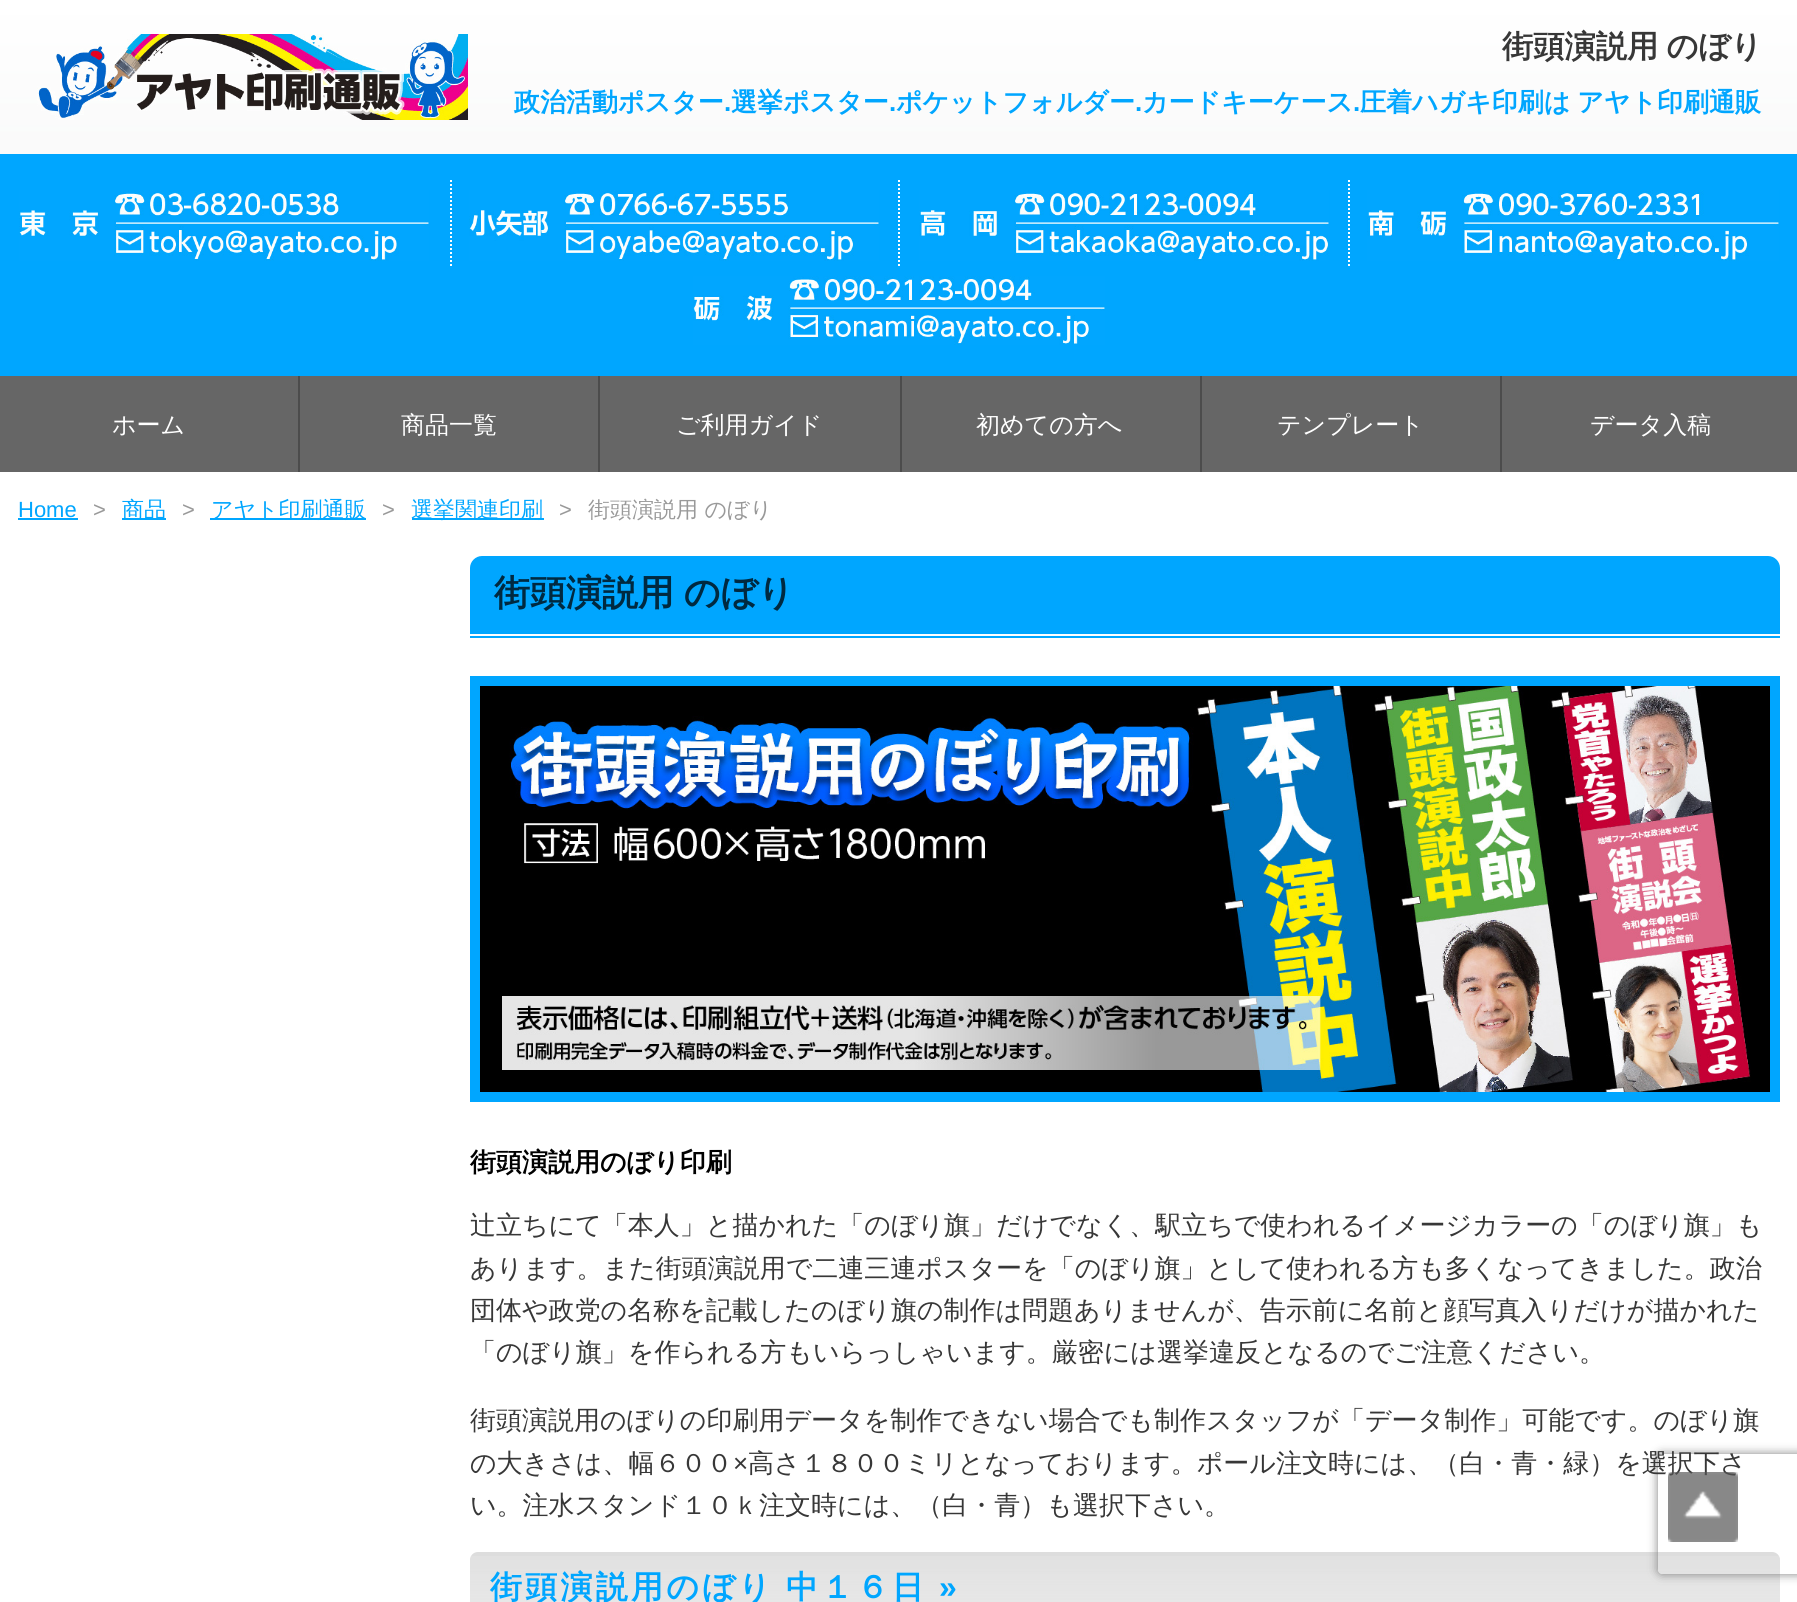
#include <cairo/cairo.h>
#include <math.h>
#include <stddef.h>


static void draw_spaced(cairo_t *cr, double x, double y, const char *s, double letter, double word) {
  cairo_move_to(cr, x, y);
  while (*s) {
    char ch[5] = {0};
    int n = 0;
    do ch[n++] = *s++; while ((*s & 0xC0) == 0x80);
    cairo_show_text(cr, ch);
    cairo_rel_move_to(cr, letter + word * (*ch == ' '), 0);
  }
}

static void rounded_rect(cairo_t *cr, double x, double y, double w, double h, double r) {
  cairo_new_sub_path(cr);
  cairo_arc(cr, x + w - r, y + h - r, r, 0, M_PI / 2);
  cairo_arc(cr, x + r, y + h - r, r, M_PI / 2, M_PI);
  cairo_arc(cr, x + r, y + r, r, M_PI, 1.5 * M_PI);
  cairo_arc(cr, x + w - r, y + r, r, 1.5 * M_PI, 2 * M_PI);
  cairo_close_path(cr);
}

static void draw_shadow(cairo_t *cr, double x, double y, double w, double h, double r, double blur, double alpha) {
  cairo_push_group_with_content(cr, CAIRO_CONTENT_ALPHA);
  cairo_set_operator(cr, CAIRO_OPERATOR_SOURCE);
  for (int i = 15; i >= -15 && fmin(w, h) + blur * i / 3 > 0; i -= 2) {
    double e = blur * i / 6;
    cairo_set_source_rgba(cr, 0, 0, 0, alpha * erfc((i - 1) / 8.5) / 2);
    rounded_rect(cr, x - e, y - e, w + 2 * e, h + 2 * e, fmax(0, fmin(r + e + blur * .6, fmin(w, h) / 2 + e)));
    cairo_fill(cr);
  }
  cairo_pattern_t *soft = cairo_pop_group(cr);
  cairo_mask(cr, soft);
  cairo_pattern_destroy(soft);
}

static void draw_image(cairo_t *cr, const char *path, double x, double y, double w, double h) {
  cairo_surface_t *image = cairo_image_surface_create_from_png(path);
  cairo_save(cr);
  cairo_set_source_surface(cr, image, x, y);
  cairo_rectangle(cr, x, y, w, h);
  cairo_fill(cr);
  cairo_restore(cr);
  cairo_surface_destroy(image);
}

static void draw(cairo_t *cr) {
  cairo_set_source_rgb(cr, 1, 1, 1);
  cairo_paint(cr);
  draw_image(cr, "images/1.png", 0, 0, 1797, 154);
  draw_image(cr, "images/2.png", 37, 34, 431, 86);
  cairo_set_source_rgb(cr, 0, 166 / 255.0, 1);
  cairo_rectangle(cr, 0, 154, 1797, 222);
  cairo_fill(cr);
  cairo_new_path(cr);
  cairo_move_to(cr, 451, 180);
  cairo_line_to(cr, 451, 266);
  cairo_set_source_rgb(cr, 1, 1, 1);
  cairo_set_dash(cr, (double[]){2, 2}, 2, 0);
  cairo_stroke(cr);
  draw_image(cr, "images/3.png", 19, 190, 410, 71);
  cairo_new_path(cr);
  cairo_move_to(cr, 899, 180);
  cairo_line_to(cr, 899, 266);
  cairo_stroke(cr);
  draw_image(cr, "images/4.png", 469, 190, 410, 71);
  cairo_new_path(cr);
  cairo_move_to(cr, 1349, 180);
  cairo_line_to(cr, 1349, 266);
  cairo_stroke(cr);
  draw_image(cr, "images/5.png", 919, 190, 410, 71);
  draw_image(cr, "images/6.png", 1367, 190, 412, 71);
  draw_image(cr, "images/7.png", 693, 276, 412, 69);
  cairo_set_source_rgb(cr, 76 / 255.0, 76 / 255.0, 76 / 255.0);
  cairo_rectangle(cr, 298, 376, 1204, 96);
  cairo_fill(cr);
  cairo_set_source_rgb(cr, 102 / 255.0, 102 / 255.0, 102 / 255.0);
  cairo_rectangle(cr, 0, 376, 298, 96);
  cairo_fill(cr);
  cairo_rectangle(cr, 300, 376, 298, 96);
  cairo_fill(cr);
  cairo_rectangle(cr, 600, 376, 300, 96);
  cairo_fill(cr);
  cairo_rectangle(cr, 902, 376, 298, 96);
  cairo_fill(cr);
  cairo_rectangle(cr, 1202, 376, 298, 96);
  cairo_fill(cr);
  cairo_rectangle(cr, 1502, 376, 295, 96);
  cairo_fill(cr);
  cairo_set_source_rgb(cr, 0, 166 / 255.0, 1);
  cairo_rectangle(cr, 18, 518, 60, 2);
  cairo_fill(cr);
  cairo_rectangle(cr, 122, 518, 44, 2);
  cairo_fill(cr);
  cairo_rectangle(cr, 210, 518, 156, 2);
  cairo_fill(cr);
  cairo_rectangle(cr, 412, 518, 132, 2);
  cairo_fill(cr);
  cairo_new_path(cr);
  cairo_move_to(cr, 482, 556);
  cairo_line_to(cr, 1768, 556);
  cairo_curve_to(cr, 1774.5, 556, 1780, 561.5, 1780, 568);
  cairo_line_to(cr, 1780, 638);
  cairo_line_to(cr, 470, 638);
  cairo_line_to(cr, 470, 568);
  cairo_curve_to(cr, 470, 561.5, 475.5, 556, 482, 556);
  cairo_close_path(cr);
  cairo_fill(cr);
  cairo_set_source_rgb(cr, 1, 1, 1);
  cairo_rectangle(cr, 470, 634, 1310, 2);
  cairo_fill(cr);
  cairo_set_source_rgb(cr, 0, 0, 0);
  cairo_rectangle(cr, 475, 681, 1300, 416);
  cairo_fill_preserve(cr);
  cairo_set_source_rgb(cr, 0, 166 / 255.0, 1);
  cairo_set_line_width(cr, 10);
  cairo_set_dash(cr, NULL, 0, 0);
  cairo_stroke(cr);
  draw_image(cr, "images/8.png", 502, 686, 1249, 406);
  cairo_set_source_rgb(cr, 221 / 255.0, 221 / 255.0, 221 / 255.0);
  cairo_new_path(cr);
  cairo_move_to(cr, 478, 1552);
  cairo_line_to(cr, 1772, 1552);
  cairo_curve_to(cr, 1776.5, 1552, 1780, 1555.5, 1780, 1560);
  cairo_line_to(cr, 1780, 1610);
  cairo_line_to(cr, 470, 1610);
  cairo_line_to(cr, 470, 1560);
  cairo_curve_to(cr, 470, 1555.5, 473.5, 1552, 478, 1552);
  cairo_close_path(cr);
  cairo_fill(cr);
  draw_image(cr, "images/9.png", 470, 1556, 1310, 46);
  cairo_save(cr);
  cairo_set_fill_rule(cr, CAIRO_FILL_RULE_EVEN_ODD);
  cairo_new_path(cr);
  cairo_move_to(cr, 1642, 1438);
  cairo_line_to(cr, 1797, 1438);
  cairo_line_to(cr, 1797, 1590);
  cairo_line_to(cr, 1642, 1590);
  cairo_close_path(cr);
  cairo_move_to(cr, 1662, 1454);
  cairo_line_to(cr, 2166, 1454);
  cairo_curve_to(cr, 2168, 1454, 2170, 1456, 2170, 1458);
  cairo_line_to(cr, 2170, 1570);
  cairo_curve_to(cr, 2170, 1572, 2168, 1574, 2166, 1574);
  cairo_line_to(cr, 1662, 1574);
  cairo_curve_to(cr, 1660, 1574, 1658, 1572, 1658, 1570);
  cairo_line_to(cr, 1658, 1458);
  cairo_curve_to(cr, 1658, 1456, 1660, 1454, 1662, 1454);
  cairo_close_path(cr);
  cairo_clip(cr);
  cairo_set_source_rgb(cr, 128 / 255.0, 128 / 255.0, 128 / 255.0);
  draw_shadow(cr, 1658, 1454, 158, 120, 4, 5, 1);
  cairo_restore(cr);
  cairo_select_font_face(cr, "WenQuanYi Zen Hei", CAIRO_FONT_SLANT_NORMAL, CAIRO_FONT_WEIGHT_BOLD);
  cairo_set_font_size(cr, 31.25);
  cairo_set_source_rgb(cr, 55 / 255.0, 55 / 255.0, 55 / 255.0);
  draw_spaced(cr, 1502, 57, "街頭演説用 のぼり", 0, -1);
  cairo_set_font_size(cr, 26);
  cairo_set_source_rgb(cr, 0, 166 / 255.0, 1);
  cairo_move_to(cr, 514, 111);
  cairo_show_text(cr, "政治活動ポスター");
  cairo_select_font_face(cr, "Liberation Sans", CAIRO_FONT_SLANT_NORMAL, CAIRO_FONT_WEIGHT_BOLD);
  cairo_move_to(cr, 724, 111);
  cairo_show_text(cr, ".");
  cairo_select_font_face(cr, "WenQuanYi Zen Hei", CAIRO_FONT_SLANT_NORMAL, CAIRO_FONT_WEIGHT_BOLD);
  cairo_move_to(cr, 731, 111);
  cairo_show_text(cr, "選挙ポスター");
  cairo_select_font_face(cr, "Liberation Sans", CAIRO_FONT_SLANT_NORMAL, CAIRO_FONT_WEIGHT_BOLD);
  cairo_move_to(cr, 889, 111);
  cairo_show_text(cr, ".");
  cairo_select_font_face(cr, "WenQuanYi Zen Hei", CAIRO_FONT_SLANT_NORMAL, CAIRO_FONT_WEIGHT_BOLD);
  cairo_move_to(cr, 896, 111);
  cairo_show_text(cr, "ポケットフォルダー");
  cairo_select_font_face(cr, "Liberation Sans", CAIRO_FONT_SLANT_NORMAL, CAIRO_FONT_WEIGHT_BOLD);
  cairo_move_to(cr, 1135, 111);
  cairo_show_text(cr, ".");
  cairo_select_font_face(cr, "WenQuanYi Zen Hei", CAIRO_FONT_SLANT_NORMAL, CAIRO_FONT_WEIGHT_BOLD);
  cairo_move_to(cr, 1142, 111);
  cairo_show_text(cr, "カードキーケース");
  cairo_select_font_face(cr, "Liberation Sans", CAIRO_FONT_SLANT_NORMAL, CAIRO_FONT_WEIGHT_BOLD);
  cairo_move_to(cr, 1353, 111);
  cairo_show_text(cr, ".");
  cairo_select_font_face(cr, "WenQuanYi Zen Hei", CAIRO_FONT_SLANT_NORMAL, CAIRO_FONT_WEIGHT_BOLD);
  draw_spaced(cr, 1360, 111, "圧着ハガキ印刷は アヤト印刷通販", 0, -1);
  cairo_select_font_face(cr, "WenQuanYi Zen Hei Medium", CAIRO_FONT_SLANT_NORMAL, CAIRO_FONT_WEIGHT_NORMAL);
  cairo_set_font_size(cr, 24);
  cairo_set_source_rgb(cr, 1, 1, 1);
  cairo_move_to(cr, 112, 433);
  cairo_show_text(cr, "ホーム");
  cairo_move_to(cr, 401, 433);
  cairo_show_text(cr, "商品一覧");
  cairo_move_to(cr, 676, 433);
  cairo_show_text(cr, "ご利用ガイド");
  cairo_move_to(cr, 976, 433);
  cairo_show_text(cr, "初めての方へ");
  cairo_move_to(cr, 1277, 433);
  cairo_show_text(cr, "テンプレート");
  cairo_move_to(cr, 1590, 433);
  cairo_show_text(cr, "データ入稿");
  cairo_select_font_face(cr, "Liberation Sans", CAIRO_FONT_SLANT_NORMAL, CAIRO_FONT_WEIGHT_NORMAL);
  cairo_set_font_size(cr, 22);
  cairo_set_source_rgb(cr, 0, 166 / 255.0, 1);
  cairo_move_to(cr, 18, 517);
  cairo_show_text(cr, "Home");
  cairo_set_source_rgb(cr, 153 / 255.0, 153 / 255.0, 153 / 255.0);
  cairo_move_to(cr, 93, 517);
  cairo_show_text(cr, ">");
  cairo_select_font_face(cr, "WenQuanYi Zen Hei Medium", CAIRO_FONT_SLANT_NORMAL, CAIRO_FONT_WEIGHT_NORMAL);
  cairo_set_source_rgb(cr, 0, 166 / 255.0, 1);
  cairo_move_to(cr, 122, 517);
  cairo_show_text(cr, "商品");
  cairo_select_font_face(cr, "Liberation Sans", CAIRO_FONT_SLANT_NORMAL, CAIRO_FONT_WEIGHT_NORMAL);
  cairo_set_source_rgb(cr, 153 / 255.0, 153 / 255.0, 153 / 255.0);
  cairo_move_to(cr, 182, 517);
  cairo_show_text(cr, ">");
  cairo_select_font_face(cr, "WenQuanYi Zen Hei Medium", CAIRO_FONT_SLANT_NORMAL, CAIRO_FONT_WEIGHT_NORMAL);
  cairo_set_source_rgb(cr, 0, 166 / 255.0, 1);
  cairo_move_to(cr, 211, 517);
  cairo_show_text(cr, "アヤト印刷通販");
  cairo_select_font_face(cr, "Liberation Sans", CAIRO_FONT_SLANT_NORMAL, CAIRO_FONT_WEIGHT_NORMAL);
  cairo_set_source_rgb(cr, 153 / 255.0, 153 / 255.0, 153 / 255.0);
  cairo_move_to(cr, 382, 517);
  cairo_show_text(cr, ">");
  cairo_select_font_face(cr, "WenQuanYi Zen Hei Medium", CAIRO_FONT_SLANT_NORMAL, CAIRO_FONT_WEIGHT_NORMAL);
  cairo_set_source_rgb(cr, 0, 166 / 255.0, 1);
  cairo_move_to(cr, 411, 517);
  cairo_show_text(cr, "選挙関連印刷");
  cairo_select_font_face(cr, "Liberation Sans", CAIRO_FONT_SLANT_NORMAL, CAIRO_FONT_WEIGHT_NORMAL);
  cairo_set_source_rgb(cr, 153 / 255.0, 153 / 255.0, 153 / 255.0);
  cairo_move_to(cr, 559, 517);
  cairo_show_text(cr, ">");
  cairo_select_font_face(cr, "WenQuanYi Zen Hei Medium", CAIRO_FONT_SLANT_NORMAL, CAIRO_FONT_WEIGHT_NORMAL);
  cairo_move_to(cr, 588, 517);
  cairo_show_text(cr, "街頭演説用 のぼり");
  cairo_select_font_face(cr, "WenQuanYi Zen Hei", CAIRO_FONT_SLANT_NORMAL, CAIRO_FONT_WEIGHT_BOLD);
  cairo_set_font_size(cr, 36);
  cairo_set_source_rgb(cr, 0, 41 / 255.0, 64 / 255.0);
  draw_spaced(cr, 494, 605, "街頭演説用 のぼり", 0, -1);
  cairo_set_font_size(cr, 26);
  cairo_set_source_rgb(cr, 0, 0, 0);
  cairo_move_to(cr, 470, 1171);
  cairo_show_text(cr, "街頭演説用のぼり印刷");
  cairo_select_font_face(cr, "WenQuanYi Zen Hei Medium", CAIRO_FONT_SLANT_NORMAL, CAIRO_FONT_WEIGHT_NORMAL);
  cairo_set_source_rgb(cr, 55 / 255.0, 55 / 255.0, 55 / 255.0);
  cairo_move_to(cr, 470, 1234);
  cairo_show_text(cr, "辻立ちにて「本人」と描かれた「のぼり旗」だけでなく、駅立ちで使われるイメージカラーの「のぼり旗」も");
  cairo_move_to(cr, 470, 1277);
  cairo_show_text(cr, "あります。また街頭演説用で二連三連ポスターを「のぼり旗」として使われる方も多くなってきました。政治");
  cairo_move_to(cr, 470, 1319);
  cairo_show_text(cr, "団体や政党の名称を記載したのぼり旗の制作は問題ありませんが、告示前に名前と顔写真入りだけが描かれた");
  cairo_move_to(cr, 470, 1361);
  cairo_show_text(cr, "「のぼり旗」を作られる方もいらっしゃいます。厳密には選挙違反となるのでご注意ください。");
  cairo_move_to(cr, 470, 1429);
  cairo_show_text(cr, "街頭演説用のぼりの印刷用データを制作できない場合でも制作スタッフが「データ制作」可能です。のぼり旗");
  cairo_move_to(cr, 470, 1472);
  cairo_show_text(cr, "の大きさは、幅６００");
  cairo_select_font_face(cr, "Liberation Sans", CAIRO_FONT_SLANT_NORMAL, CAIRO_FONT_WEIGHT_NORMAL);
  cairo_move_to(cr, 733, 1472);
  cairo_show_text(cr, "×");
  cairo_select_font_face(cr, "WenQuanYi Zen Hei Medium", CAIRO_FONT_SLANT_NORMAL, CAIRO_FONT_WEIGHT_NORMAL);
  cairo_move_to(cr, 748, 1472);
  cairo_show_text(cr, "高さ１８００ミリとなっております。ポール注文時には、（白・青・緑）を選択下さ");
  cairo_move_to(cr, 470, 1514);
  cairo_show_text(cr, "い。注水スタンド１０ｋ注文時には、（白・青）も選択下さい。");
  cairo_select_font_face(cr, "WenQuanYi Zen Hei", CAIRO_FONT_SLANT_NORMAL, CAIRO_FONT_WEIGHT_BOLD);
  cairo_set_font_size(cr, 32);
  cairo_set_source_rgb(cr, 0, 166 / 255.0, 1);
  draw_spaced(cr, 490, 1598, "街頭演説用のぼり 中１６日", 3.25, -1);
  cairo_select_font_face(cr, "Liberation Sans", CAIRO_FONT_SLANT_NORMAL, CAIRO_FONT_WEIGHT_BOLD);
  draw_spaced(cr, 939, 1598, "»", 3.25, 0);
  draw_image(cr, "images/10.png", 1668, 1472, 70, 70);
}

int main(void) {
  cairo_surface_t *surface = cairo_image_surface_create(CAIRO_FORMAT_RGB24, 1797, 1602);
  cairo_t *cr = cairo_create(surface);
  cairo_font_options_t *options = cairo_font_options_create();
  cairo_font_options_set_hint_metrics(options, CAIRO_HINT_METRICS_OFF);
  cairo_font_options_set_hint_style(options, CAIRO_HINT_STYLE_NONE);
  cairo_set_font_options(cr, options);
  cairo_set_miter_limit(cr, 4);
  draw(cr);
  cairo_surface_write_to_png(surface, "out.png");
  cairo_font_options_destroy(options);
  cairo_destroy(cr);
  cairo_surface_destroy(surface);
  return 0;
}
